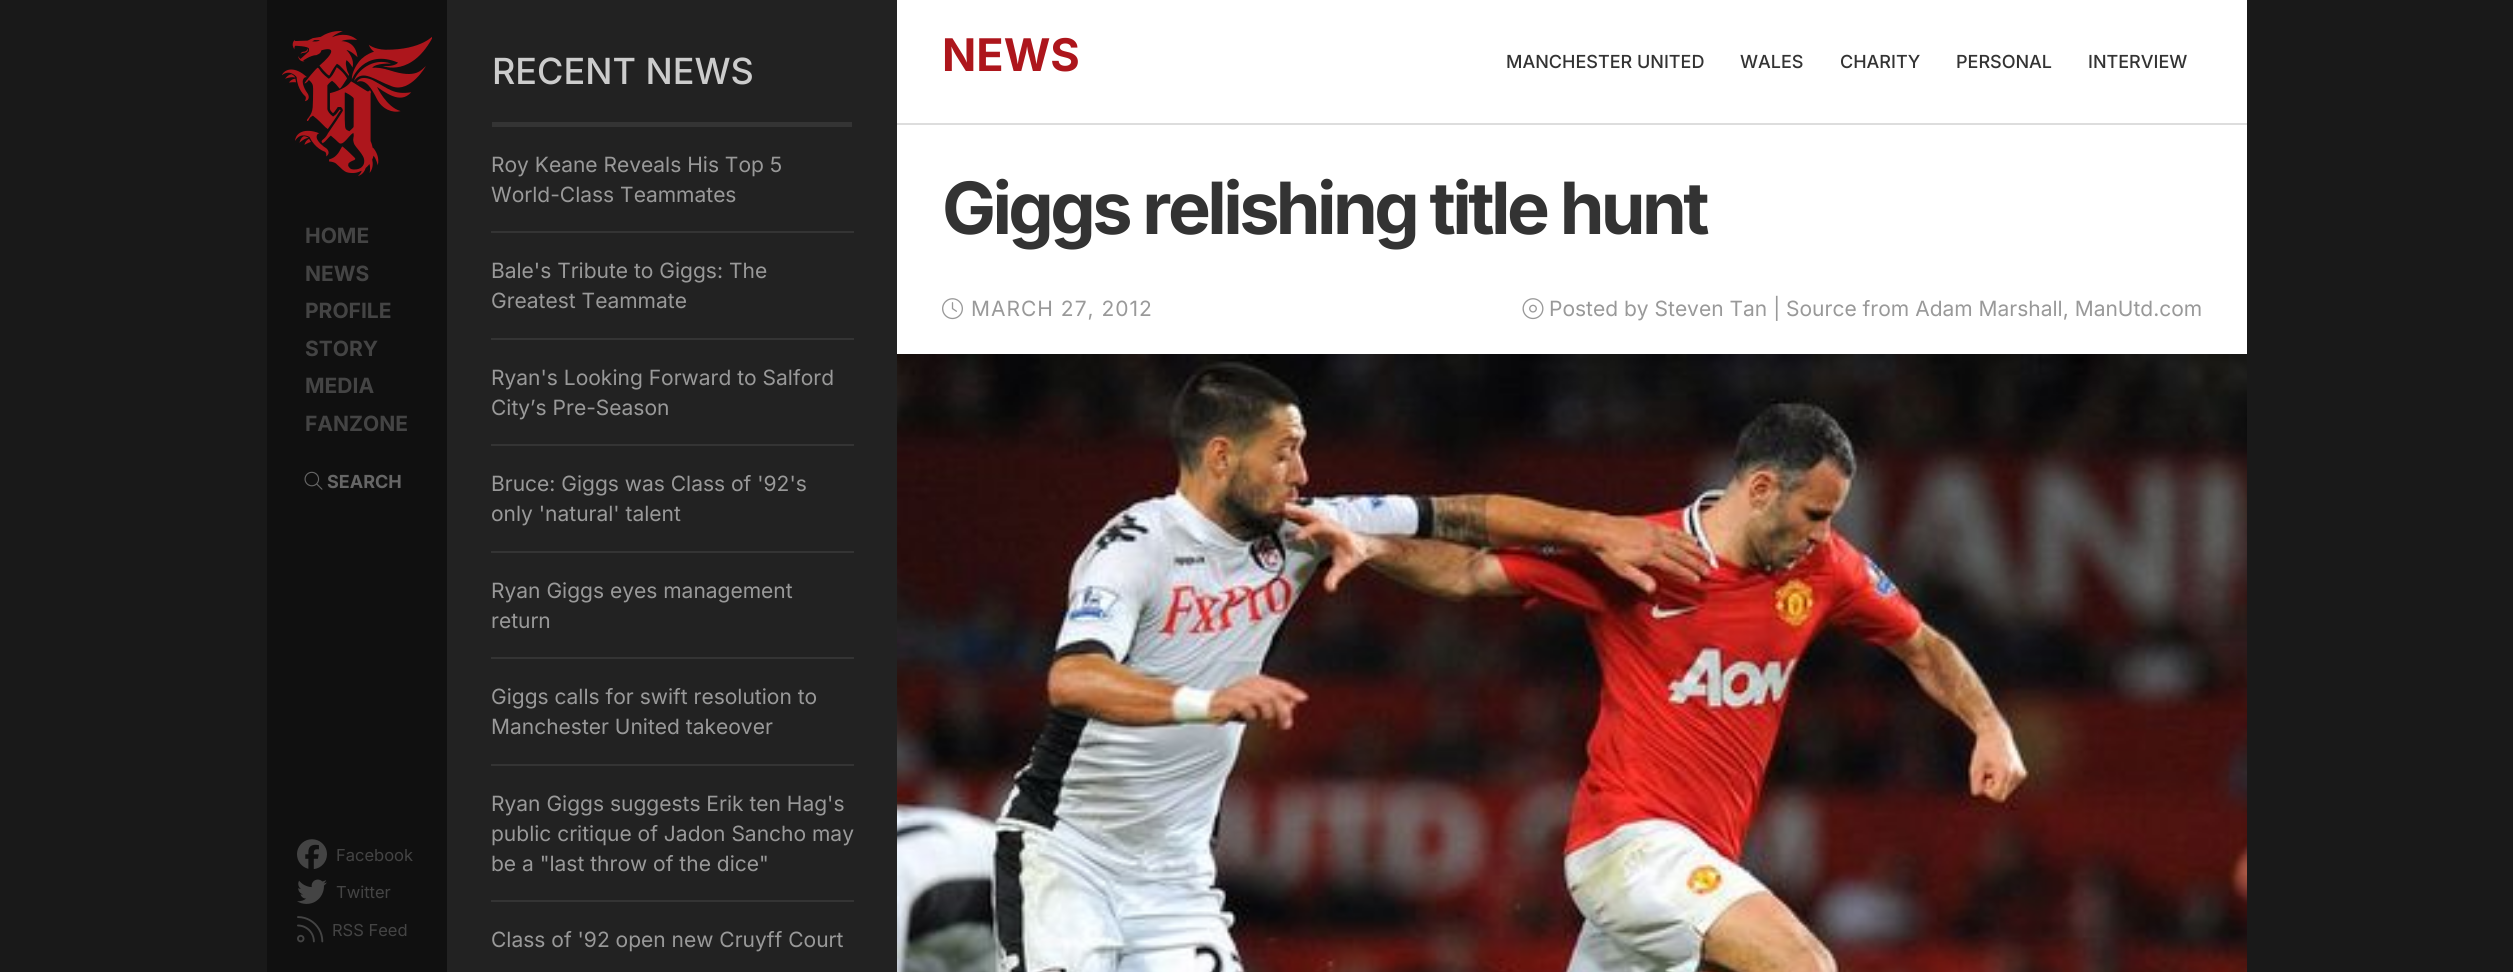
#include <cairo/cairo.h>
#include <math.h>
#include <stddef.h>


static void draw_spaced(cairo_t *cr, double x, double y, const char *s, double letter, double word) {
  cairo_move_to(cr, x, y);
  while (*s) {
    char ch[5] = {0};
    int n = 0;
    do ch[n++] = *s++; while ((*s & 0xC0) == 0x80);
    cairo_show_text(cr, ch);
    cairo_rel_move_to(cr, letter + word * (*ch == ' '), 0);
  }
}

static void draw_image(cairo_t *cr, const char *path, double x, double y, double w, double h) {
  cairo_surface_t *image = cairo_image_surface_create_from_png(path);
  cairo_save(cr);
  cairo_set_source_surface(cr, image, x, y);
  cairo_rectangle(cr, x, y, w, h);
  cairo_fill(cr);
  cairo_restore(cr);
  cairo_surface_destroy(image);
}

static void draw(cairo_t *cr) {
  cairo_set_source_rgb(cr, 25 / 255.0, 25 / 255.0, 25 / 255.0);
  cairo_paint(cr);
  cairo_set_source_rgb(cr, 16 / 255.0, 16 / 255.0, 16 / 255.0);
  cairo_rectangle(cr, 267, 0, 180, 972);
  cairo_fill(cr);
  draw_image(cr, "images/1.png", 282, 31, 150, 145);
  draw_image(cr, "images/2.png", 297, 839, 30, 30);
  draw_image(cr, "images/3.png", 297, 879, 30, 25);
  draw_image(cr, "images/4.png", 297, 916, 27, 27);
  draw_image(cr, "images/5.png", 304, 471, 19, 19);
  cairo_set_source_rgb(cr, 1, 1, 1);
  cairo_rectangle(cr, 897, 0, 1350, 354);
  cairo_fill(cr);
  cairo_set_source_rgb(cr, 34 / 255.0, 34 / 255.0, 34 / 255.0);
  cairo_rectangle(cr, 447, 0, 450, 972);
  cairo_fill(cr);
  cairo_set_source_rgb(cr, 52 / 255.0, 52 / 255.0, 52 / 255.0);
  cairo_rectangle(cr, 492, 122, 360, 5);
  cairo_fill(cr);
  cairo_rectangle(cr, 491, 231, 363, 2);
  cairo_fill(cr);
  cairo_rectangle(cr, 491, 338, 363, 2);
  cairo_fill(cr);
  cairo_rectangle(cr, 491, 444, 363, 2);
  cairo_fill(cr);
  cairo_rectangle(cr, 491, 551, 363, 2);
  cairo_fill(cr);
  cairo_rectangle(cr, 491, 657, 363, 2);
  cairo_fill(cr);
  cairo_rectangle(cr, 491, 764, 363, 2);
  cairo_fill(cr);
  cairo_rectangle(cr, 491, 900, 363, 2);
  cairo_fill(cr);
  cairo_set_source_rgb(cr, 221 / 255.0, 221 / 255.0, 221 / 255.0);
  cairo_rectangle(cr, 897, 123, 1350, 2);
  cairo_fill(cr);
  draw_image(cr, "images/6.png", 942, 298, 21, 22);
  draw_image(cr, "images/7.png", 1522, 298, 22, 22);
  draw_image(cr, "images/8.png", 897, 354, 1350, 618);
  cairo_select_font_face(cr, "Inter", CAIRO_FONT_SLANT_NORMAL, CAIRO_FONT_WEIGHT_BOLD);
  cairo_set_font_size(cr, 21);
  cairo_set_source_rgb(cr, 68 / 255.0, 68 / 255.0, 68 / 255.0);
  cairo_move_to(cr, 305, 243);
  cairo_show_text(cr, "HOME");
  cairo_move_to(cr, 305, 281);
  cairo_show_text(cr, "NEWS");
  cairo_move_to(cr, 305, 318);
  cairo_show_text(cr, "PROFILE");
  cairo_move_to(cr, 305, 356);
  cairo_show_text(cr, "STORY");
  cairo_move_to(cr, 305, 393);
  cairo_show_text(cr, "MEDIA");
  cairo_move_to(cr, 305, 431);
  cairo_show_text(cr, "FANZONE");
  cairo_select_font_face(cr, "Inter", CAIRO_FONT_SLANT_NORMAL, CAIRO_FONT_WEIGHT_NORMAL);
  cairo_set_font_size(cr, 16.5);
  cairo_move_to(cr, 336, 861);
  cairo_show_text(cr, "Facebook");
  cairo_move_to(cr, 336, 898);
  cairo_show_text(cr, "Twitter");
  cairo_move_to(cr, 332, 936);
  cairo_show_text(cr, "RSS Feed");
  cairo_select_font_face(cr, "Inter", CAIRO_FONT_SLANT_NORMAL, CAIRO_FONT_WEIGHT_BOLD);
  cairo_set_font_size(cr, 18);
  cairo_set_source_rgb(cr, 102 / 255.0, 102 / 255.0, 102 / 255.0);
  cairo_move_to(cr, 327, 488);
  cairo_show_text(cr, "SEARCH");
  cairo_select_font_face(cr, "Inter Medium", CAIRO_FONT_SLANT_NORMAL, CAIRO_FONT_WEIGHT_NORMAL);
  cairo_set_font_size(cr, 36);
  cairo_set_source_rgb(cr, 204 / 255.0, 204 / 255.0, 204 / 255.0);
  cairo_move_to(cr, 492, 84);
  cairo_show_text(cr, "RECENT NEWS");
  cairo_select_font_face(cr, "Inter", CAIRO_FONT_SLANT_NORMAL, CAIRO_FONT_WEIGHT_NORMAL);
  cairo_set_font_size(cr, 21);
  cairo_set_source_rgb(cr, 153 / 255.0, 153 / 255.0, 153 / 255.0);
  cairo_move_to(cr, 491, 172);
  cairo_show_text(cr, "Roy Keane Reveals His Top 5");
  cairo_move_to(cr, 491, 202);
  cairo_show_text(cr, "World-Class Teammates");
  cairo_move_to(cr, 491, 278);
  cairo_show_text(cr, "Bale's Tribute to Giggs: The");
  cairo_move_to(cr, 491, 308);
  cairo_show_text(cr, "Greatest Teammate");
  cairo_move_to(cr, 491, 385);
  cairo_show_text(cr, "Ryan's Looking Forward to Salford");
  cairo_move_to(cr, 491, 415);
  cairo_show_text(cr, "City’s Pre-Season");
  cairo_move_to(cr, 491, 491);
  cairo_show_text(cr, "Bruce: Giggs was Class of '92's");
  cairo_move_to(cr, 491, 521);
  cairo_show_text(cr, "only 'natural' talent");
  cairo_move_to(cr, 491, 598);
  cairo_show_text(cr, "Ryan Giggs eyes management");
  cairo_move_to(cr, 491, 628);
  cairo_show_text(cr, "return");
  cairo_move_to(cr, 491, 704);
  cairo_show_text(cr, "Giggs calls for swift resolution to");
  cairo_move_to(cr, 491, 734);
  cairo_show_text(cr, "Manchester United takeover");
  cairo_move_to(cr, 491, 811);
  cairo_show_text(cr, "Ryan Giggs suggests Erik ten Hag's");
  cairo_move_to(cr, 491, 841);
  cairo_show_text(cr, "public critique of Jadon Sancho may");
  cairo_move_to(cr, 491, 871);
  cairo_show_text(cr, "be a \"last throw of the dice\"");
  cairo_move_to(cr, 491, 947);
  cairo_show_text(cr, "Class of '92 open new Cruyff Court");
  cairo_select_font_face(cr, "Inter", CAIRO_FONT_SLANT_NORMAL, CAIRO_FONT_WEIGHT_BOLD);
  cairo_set_font_size(cr, 45);
  cairo_set_source_rgb(cr, 173 / 255.0, 22 / 255.0, 28 / 255.0);
  cairo_move_to(cr, 942, 71);
  cairo_show_text(cr, "NEWS");
  cairo_select_font_face(cr, "Inter Medium", CAIRO_FONT_SLANT_NORMAL, CAIRO_FONT_WEIGHT_NORMAL);
  cairo_set_font_size(cr, 18);
  cairo_set_source_rgb(cr, 51 / 255.0, 51 / 255.0, 51 / 255.0);
  cairo_move_to(cr, 1506, 68);
  cairo_show_text(cr, "MANCHESTER UNITED");
  cairo_move_to(cr, 1740, 68);
  cairo_show_text(cr, "WALES");
  cairo_move_to(cr, 1840, 68);
  cairo_show_text(cr, "CHARITY");
  cairo_move_to(cr, 1956, 68);
  cairo_show_text(cr, "PERSONAL");
  cairo_move_to(cr, 2088, 68);
  cairo_show_text(cr, "INTERVIEW");
  cairo_select_font_face(cr, "Inter", CAIRO_FONT_SLANT_NORMAL, CAIRO_FONT_WEIGHT_BOLD);
  cairo_set_font_size(cr, 72);
  draw_spaced(cr, 942, 234, "Giggs relishing title hunt", -3.6, 0);
  cairo_select_font_face(cr, "Inter", CAIRO_FONT_SLANT_NORMAL, CAIRO_FONT_WEIGHT_NORMAL);
  cairo_set_font_size(cr, 21);
  cairo_set_source_rgb(cr, 153 / 255.0, 153 / 255.0, 153 / 255.0);
  draw_spaced(cr, 971, 316, "MARCH 27, 2012", 1, 0);
  cairo_move_to(cr, 1549, 316);
  cairo_show_text(cr, "Posted by Steven Tan | Source from Adam Marshall, ManUtd.com");
}

int main(void) {
  cairo_surface_t *surface = cairo_image_surface_create(CAIRO_FORMAT_RGB24, 2513, 972);
  cairo_t *cr = cairo_create(surface);
  cairo_font_options_t *options = cairo_font_options_create();
  cairo_font_options_set_hint_metrics(options, CAIRO_HINT_METRICS_OFF);
  cairo_font_options_set_hint_style(options, CAIRO_HINT_STYLE_NONE);
  cairo_set_font_options(cr, options);
  cairo_set_miter_limit(cr, 4);
  draw(cr);
  cairo_surface_write_to_png(surface, "out.png");
  cairo_font_options_destroy(options);
  cairo_destroy(cr);
  cairo_surface_destroy(surface);
  return 0;
}
